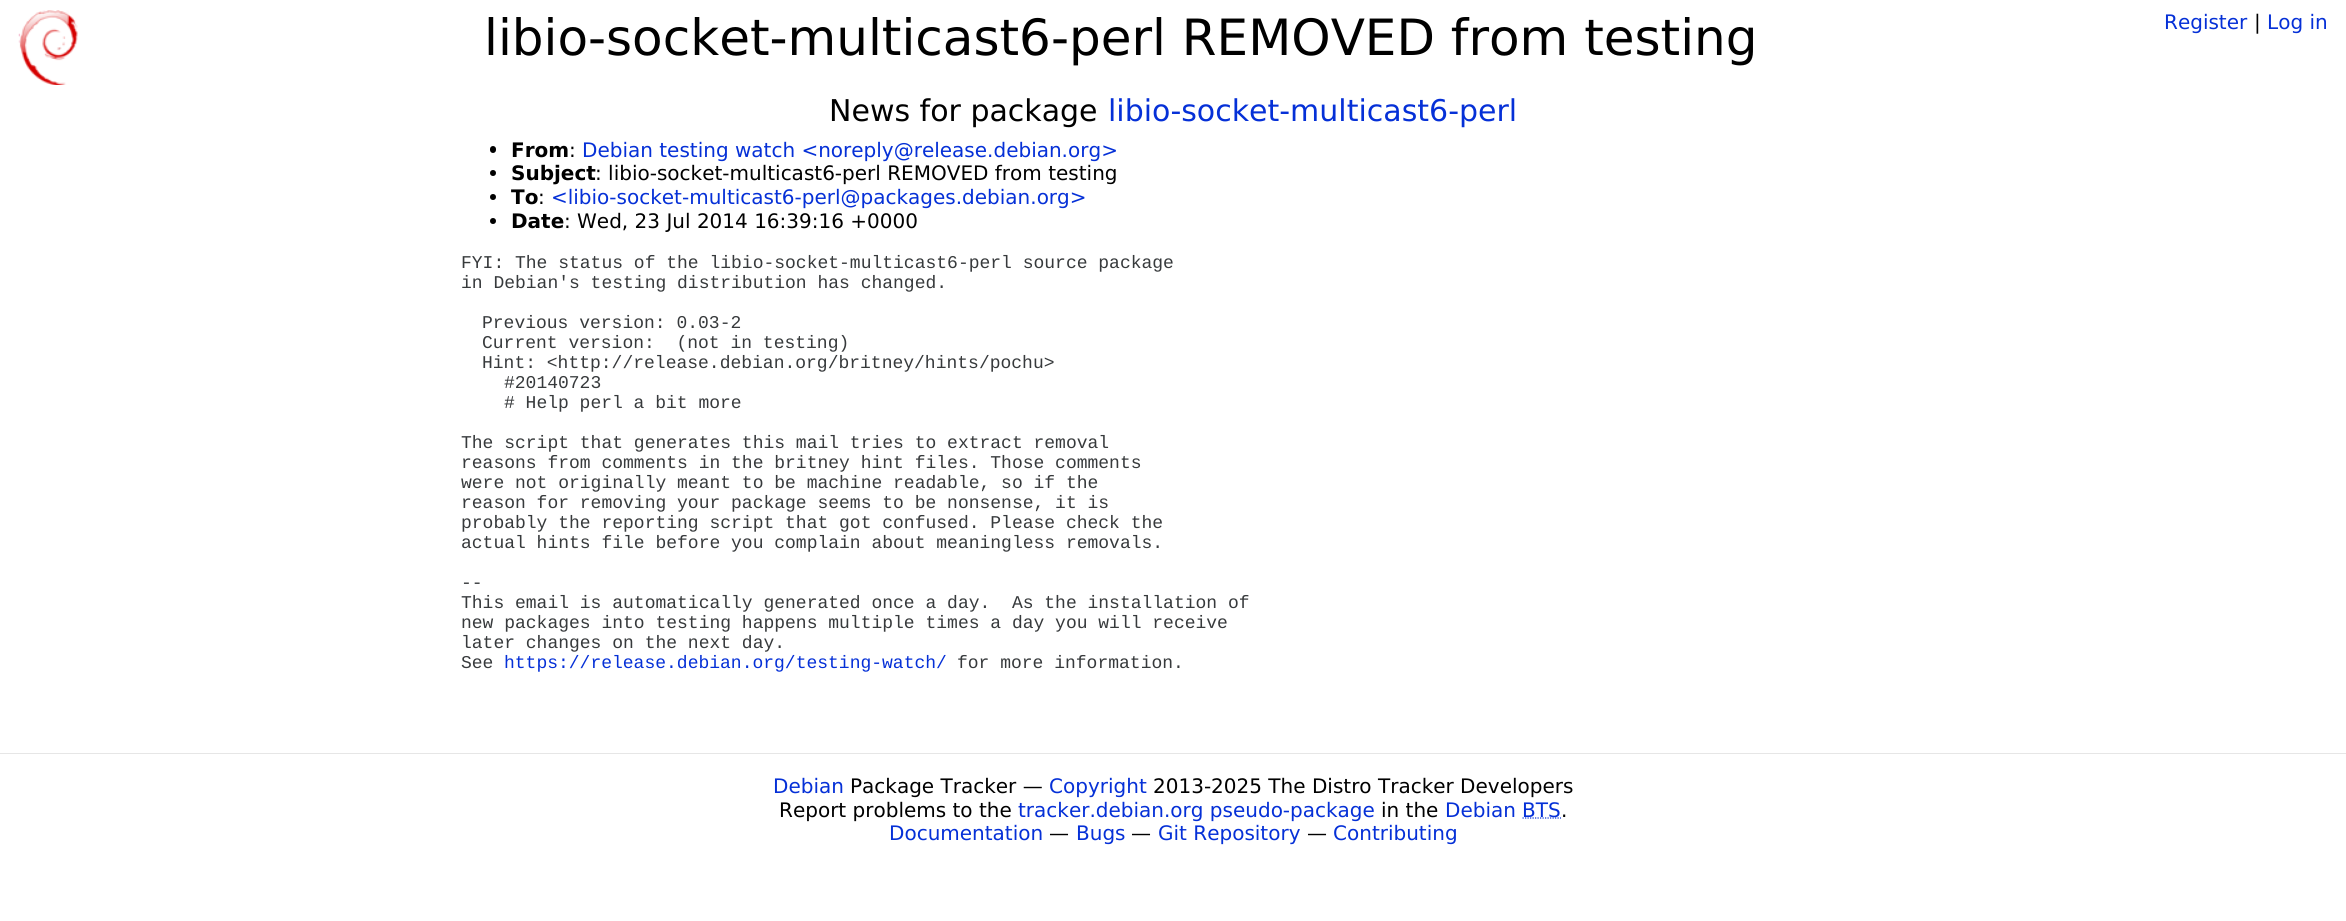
#include <cairo/cairo.h>
#include <math.h>
#include <stddef.h>


static void rounded_rect(cairo_t *cr, double x, double y, double w, double h, double r) {
  cairo_new_sub_path(cr);
  cairo_arc(cr, x + w - r, y + h - r, r, 0, M_PI / 2);
  cairo_arc(cr, x + r, y + h - r, r, M_PI / 2, M_PI);
  cairo_arc(cr, x + r, y + r, r, M_PI, 1.5 * M_PI);
  cairo_arc(cr, x + w - r, y + r, r, 1.5 * M_PI, 2 * M_PI);
  cairo_close_path(cr);
}

static void draw_image(cairo_t *cr, const char *path, double x, double y, double w, double h) {
  cairo_surface_t *image = cairo_image_surface_create_from_png(path);
  cairo_save(cr);
  cairo_set_source_surface(cr, image, x, y);
  cairo_rectangle(cr, x, y, w, h);
  cairo_fill(cr);
  cairo_restore(cr);
  cairo_surface_destroy(image);
}

static void draw(cairo_t *cr) {
  cairo_set_source_rgb(cr, 1, 1, 1);
  cairo_paint(cr);
  draw_image(cr, "images/1.png", 18, 10, 60, 75);
  cairo_set_source_rgb(cr, 0, 0, 0);
  rounded_rect(cr, 490, 146, 6, 7, 3);
  cairo_fill(cr);
  cairo_arc(cr, 493, 173, 3, 0, 2 * M_PI);
  cairo_fill(cr);
  cairo_arc(cr, 493, 197, 3, 0, 2 * M_PI);
  cairo_fill(cr);
  cairo_arc(cr, 493, 221, 3, 0, 2 * M_PI);
  cairo_fill(cr);
  cairo_set_source_rgb(cr, 230 / 255.0, 230 / 255.0, 230 / 255.0);
  cairo_rectangle(cr, 0, 753, 2346, 1);
  cairo_fill(cr);
  cairo_new_path(cr);
  cairo_move_to(cr, 1522.5, 818);
  cairo_line_to(cr, 1561, 818);
  cairo_set_source_rgb(cr, 5 / 255.0, 48 / 255.0, 215 / 255.0);
  cairo_set_line_width(cr, 1.2);
  cairo_set_dash(cr, (double[]){1.25, 1.25}, 2, 0);
  cairo_stroke(cr);
  cairo_select_font_face(cr, "DejaVu Sans", CAIRO_FONT_SLANT_NORMAL, CAIRO_FONT_WEIGHT_NORMAL);
  cairo_set_font_size(cr, 50);
  cairo_set_source_rgb(cr, 0, 0, 0);
  cairo_move_to(cr, 484, 55);
  cairo_show_text(cr, "libio-socket-multicast6-perl REMOVED from testing");
  cairo_set_font_size(cr, 20);
  cairo_set_source_rgb(cr, 5 / 255.0, 48 / 255.0, 215 / 255.0);
  cairo_move_to(cr, 2164, 29);
  cairo_show_text(cr, "Register");
  cairo_set_source_rgb(cr, 0, 0, 0);
  cairo_move_to(cr, 2254, 29);
  cairo_show_text(cr, "|");
  cairo_set_source_rgb(cr, 5 / 255.0, 48 / 255.0, 215 / 255.0);
  cairo_move_to(cr, 2267, 29);
  cairo_show_text(cr, "Log in");
  cairo_set_font_size(cr, 30);
  cairo_set_source_rgb(cr, 0, 0, 0);
  cairo_move_to(cr, 829, 121);
  cairo_show_text(cr, "News for package");
  cairo_set_source_rgb(cr, 5 / 255.0, 48 / 255.0, 215 / 255.0);
  cairo_move_to(cr, 1108, 121);
  cairo_show_text(cr, "libio-socket-multicast6-perl");
  cairo_select_font_face(cr, "DejaVu Sans", CAIRO_FONT_SLANT_NORMAL, CAIRO_FONT_WEIGHT_BOLD);
  cairo_set_font_size(cr, 20);
  cairo_set_source_rgb(cr, 0, 0, 0);
  cairo_move_to(cr, 511, 157);
  cairo_show_text(cr, "From");
  cairo_select_font_face(cr, "DejaVu Sans", CAIRO_FONT_SLANT_NORMAL, CAIRO_FONT_WEIGHT_NORMAL);
  cairo_move_to(cr, 569, 157);
  cairo_show_text(cr, ":");
  cairo_set_source_rgb(cr, 5 / 255.0, 48 / 255.0, 215 / 255.0);
  cairo_move_to(cr, 582, 157);
  cairo_show_text(cr, "Debian testing watch <noreply@release.debian.org>");
  cairo_select_font_face(cr, "DejaVu Sans", CAIRO_FONT_SLANT_NORMAL, CAIRO_FONT_WEIGHT_BOLD);
  cairo_set_source_rgb(cr, 0, 0, 0);
  cairo_move_to(cr, 511, 180);
  cairo_show_text(cr, "Subject");
  cairo_select_font_face(cr, "DejaVu Sans", CAIRO_FONT_SLANT_NORMAL, CAIRO_FONT_WEIGHT_NORMAL);
  cairo_move_to(cr, 595, 180);
  cairo_show_text(cr, ": libio-socket-multicast6-perl REMOVED from testing");
  cairo_select_font_face(cr, "DejaVu Sans", CAIRO_FONT_SLANT_NORMAL, CAIRO_FONT_WEIGHT_BOLD);
  cairo_move_to(cr, 511, 204);
  cairo_show_text(cr, "To");
  cairo_select_font_face(cr, "DejaVu Sans", CAIRO_FONT_SLANT_NORMAL, CAIRO_FONT_WEIGHT_NORMAL);
  cairo_move_to(cr, 538, 204);
  cairo_show_text(cr, ":");
  cairo_set_source_rgb(cr, 5 / 255.0, 48 / 255.0, 215 / 255.0);
  cairo_move_to(cr, 551, 204);
  cairo_show_text(cr, "<libio-socket-multicast6-perl@packages.debian.org>");
  cairo_select_font_face(cr, "DejaVu Sans", CAIRO_FONT_SLANT_NORMAL, CAIRO_FONT_WEIGHT_BOLD);
  cairo_set_source_rgb(cr, 0, 0, 0);
  cairo_move_to(cr, 511, 228);
  cairo_show_text(cr, "Date");
  cairo_select_font_face(cr, "DejaVu Sans", CAIRO_FONT_SLANT_NORMAL, CAIRO_FONT_WEIGHT_NORMAL);
  cairo_move_to(cr, 564, 228);
  cairo_show_text(cr, ": Wed, 23 Jul 2014 16:39:16 +0000");
  cairo_select_font_face(cr, "Liberation Mono", CAIRO_FONT_SLANT_NORMAL, CAIRO_FONT_WEIGHT_NORMAL);
  cairo_set_font_size(cr, 18);
  cairo_set_source_rgb(cr, 55 / 255.0, 58 / 255.0, 60 / 255.0);
  cairo_move_to(cr, 461, 268);
  cairo_show_text(cr, "FYI: The status of the libio-socket-multicast6-perl source package");
  cairo_move_to(cr, 461, 288);
  cairo_show_text(cr, "in Debian's testing distribution has changed.");
  cairo_move_to(cr, 482, 328);
  cairo_show_text(cr, "Previous version: 0.03-2");
  cairo_move_to(cr, 482, 348);
  cairo_show_text(cr, "Current version:  (not in testing)");
  cairo_move_to(cr, 482, 368);
  cairo_show_text(cr, "Hint: <http://release.debian.org/britney/hints/pochu>");
  cairo_move_to(cr, 504, 388);
  cairo_show_text(cr, "#20140723");
  cairo_move_to(cr, 504, 408);
  cairo_show_text(cr, "# Help perl a bit more");
  cairo_move_to(cr, 461, 448);
  cairo_show_text(cr, "The script that generates this mail tries to extract removal");
  cairo_move_to(cr, 461, 468);
  cairo_show_text(cr, "reasons from comments in the britney hint files. Those comments");
  cairo_move_to(cr, 461, 488);
  cairo_show_text(cr, "were not originally meant to be machine readable, so if the");
  cairo_move_to(cr, 461, 508);
  cairo_show_text(cr, "reason for removing your package seems to be nonsense, it is");
  cairo_move_to(cr, 461, 528);
  cairo_show_text(cr, "probably the reporting script that got confused. Please check the");
  cairo_move_to(cr, 461, 548);
  cairo_show_text(cr, "actual hints file before you complain about meaningless removals.");
  cairo_move_to(cr, 461, 588);
  cairo_show_text(cr, "--");
  cairo_move_to(cr, 461, 608);
  cairo_show_text(cr, "This email is automatically generated once a day.  As the installation of");
  cairo_move_to(cr, 461, 628);
  cairo_show_text(cr, "new packages into testing happens multiple times a day you will receive");
  cairo_move_to(cr, 461, 648);
  cairo_show_text(cr, "later changes on the next day.");
  cairo_move_to(cr, 461, 668);
  cairo_show_text(cr, "See");
  cairo_set_source_rgb(cr, 5 / 255.0, 48 / 255.0, 215 / 255.0);
  cairo_move_to(cr, 504, 668);
  cairo_show_text(cr, "https://release.debian.org/testing-watch/");
  cairo_set_source_rgb(cr, 55 / 255.0, 58 / 255.0, 60 / 255.0);
  cairo_move_to(cr, 957, 668);
  cairo_show_text(cr, "for more information.");
  cairo_select_font_face(cr, "DejaVu Sans", CAIRO_FONT_SLANT_NORMAL, CAIRO_FONT_WEIGHT_NORMAL);
  cairo_set_font_size(cr, 20);
  cairo_set_source_rgb(cr, 5 / 255.0, 48 / 255.0, 215 / 255.0);
  cairo_move_to(cr, 773, 793);
  cairo_show_text(cr, "Debian");
  cairo_set_source_rgb(cr, 0, 0, 0);
  cairo_move_to(cr, 850, 793);
  cairo_show_text(cr, "Package Tracker —");
  cairo_set_source_rgb(cr, 5 / 255.0, 48 / 255.0, 215 / 255.0);
  cairo_move_to(cr, 1049, 793);
  cairo_show_text(cr, "Copyright");
  cairo_set_source_rgb(cr, 0, 0, 0);
  cairo_move_to(cr, 1153, 793);
  cairo_show_text(cr, "2013-2025 The Distro Tracker Developers");
  cairo_move_to(cr, 779, 817);
  cairo_show_text(cr, "Report problems to the");
  cairo_set_source_rgb(cr, 5 / 255.0, 48 / 255.0, 215 / 255.0);
  cairo_move_to(cr, 1018, 817);
  cairo_show_text(cr, "tracker.debian.org pseudo-package");
  cairo_set_source_rgb(cr, 0, 0, 0);
  cairo_move_to(cr, 1381, 817);
  cairo_show_text(cr, "in the");
  cairo_set_source_rgb(cr, 5 / 255.0, 48 / 255.0, 215 / 255.0);
  cairo_move_to(cr, 1445, 817);
  cairo_show_text(cr, "Debian");
  cairo_move_to(cr, 1522, 817);
  cairo_show_text(cr, "BTS");
  cairo_set_source_rgb(cr, 0, 0, 0);
  cairo_move_to(cr, 1561, 817);
  cairo_show_text(cr, ".");
  cairo_set_source_rgb(cr, 5 / 255.0, 48 / 255.0, 215 / 255.0);
  cairo_move_to(cr, 889, 840);
  cairo_show_text(cr, "Documentation");
  cairo_set_source_rgb(cr, 0, 0, 0);
  cairo_move_to(cr, 1049, 840);
  cairo_show_text(cr, "—");
  cairo_set_source_rgb(cr, 5 / 255.0, 48 / 255.0, 215 / 255.0);
  cairo_move_to(cr, 1076, 840);
  cairo_show_text(cr, "Bugs");
  cairo_set_source_rgb(cr, 0, 0, 0);
  cairo_move_to(cr, 1131, 840);
  cairo_show_text(cr, "—");
  cairo_set_source_rgb(cr, 5 / 255.0, 48 / 255.0, 215 / 255.0);
  cairo_move_to(cr, 1158, 840);
  cairo_show_text(cr, "Git Repository");
  cairo_set_source_rgb(cr, 0, 0, 0);
  cairo_move_to(cr, 1307, 840);
  cairo_show_text(cr, "—");
  cairo_set_source_rgb(cr, 5 / 255.0, 48 / 255.0, 215 / 255.0);
  cairo_move_to(cr, 1333, 840);
  cairo_show_text(cr, "Contributing");
}

int main(void) {
  cairo_surface_t *surface = cairo_image_surface_create(CAIRO_FORMAT_RGB24, 2346, 921);
  cairo_t *cr = cairo_create(surface);
  cairo_font_options_t *options = cairo_font_options_create();
  cairo_font_options_set_hint_metrics(options, CAIRO_HINT_METRICS_OFF);
  cairo_font_options_set_hint_style(options, CAIRO_HINT_STYLE_NONE);
  cairo_set_font_options(cr, options);
  cairo_set_miter_limit(cr, 4);
  draw(cr);
  cairo_surface_write_to_png(surface, "out.png");
  cairo_font_options_destroy(options);
  cairo_destroy(cr);
  cairo_surface_destroy(surface);
  return 0;
}
